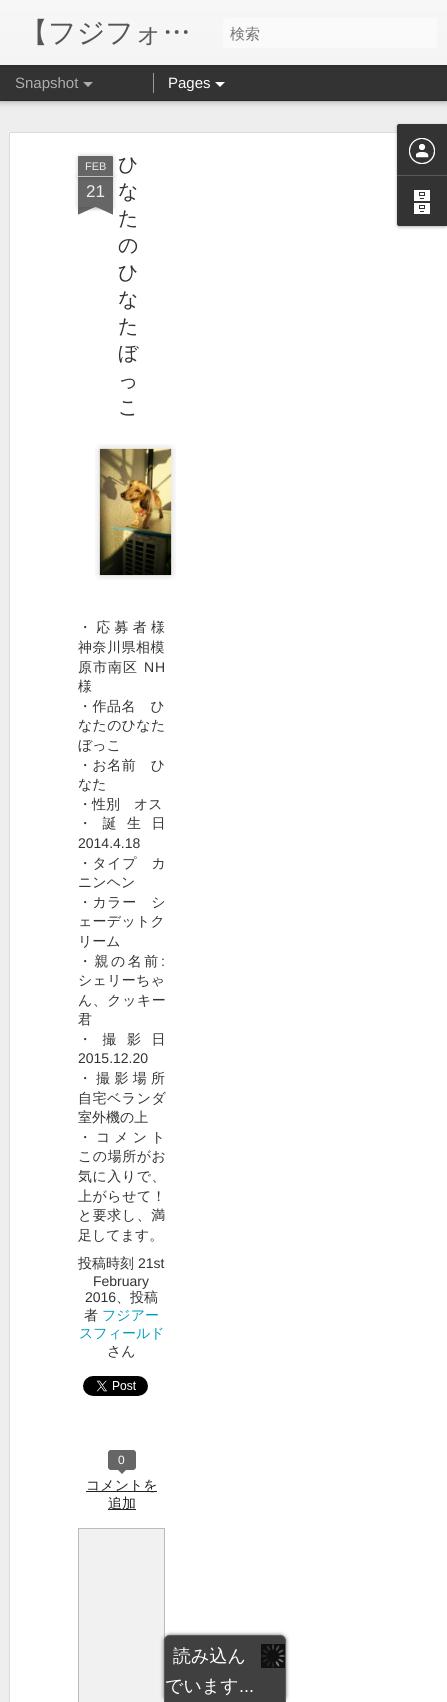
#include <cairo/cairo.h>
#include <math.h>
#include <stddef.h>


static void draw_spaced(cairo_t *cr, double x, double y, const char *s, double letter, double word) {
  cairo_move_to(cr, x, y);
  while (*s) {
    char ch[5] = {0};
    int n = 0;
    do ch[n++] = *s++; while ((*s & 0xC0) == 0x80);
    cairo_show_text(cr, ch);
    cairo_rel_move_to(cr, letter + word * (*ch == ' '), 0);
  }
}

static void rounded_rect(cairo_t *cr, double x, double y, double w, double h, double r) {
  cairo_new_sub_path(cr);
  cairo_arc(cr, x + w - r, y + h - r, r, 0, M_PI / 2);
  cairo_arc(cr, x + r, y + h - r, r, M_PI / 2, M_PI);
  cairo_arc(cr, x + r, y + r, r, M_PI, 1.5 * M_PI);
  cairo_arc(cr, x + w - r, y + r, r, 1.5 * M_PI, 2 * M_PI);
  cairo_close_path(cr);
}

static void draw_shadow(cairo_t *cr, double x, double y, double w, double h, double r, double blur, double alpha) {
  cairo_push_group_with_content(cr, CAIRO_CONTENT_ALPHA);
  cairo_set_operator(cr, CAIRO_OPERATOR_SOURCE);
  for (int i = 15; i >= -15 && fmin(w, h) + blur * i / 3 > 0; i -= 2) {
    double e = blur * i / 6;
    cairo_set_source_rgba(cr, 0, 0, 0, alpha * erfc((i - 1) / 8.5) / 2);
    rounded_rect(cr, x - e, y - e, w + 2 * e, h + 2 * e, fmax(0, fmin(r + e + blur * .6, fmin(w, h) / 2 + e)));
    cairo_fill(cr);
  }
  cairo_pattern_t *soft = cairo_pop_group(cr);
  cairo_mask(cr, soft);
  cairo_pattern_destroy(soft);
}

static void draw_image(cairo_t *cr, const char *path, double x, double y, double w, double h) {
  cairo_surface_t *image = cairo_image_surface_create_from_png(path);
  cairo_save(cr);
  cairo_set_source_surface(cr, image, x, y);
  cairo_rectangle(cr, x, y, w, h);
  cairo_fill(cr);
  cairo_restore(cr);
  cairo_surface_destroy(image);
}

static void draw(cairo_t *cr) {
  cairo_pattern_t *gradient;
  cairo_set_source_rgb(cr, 51 / 255.0, 51 / 255.0, 51 / 255.0);
  cairo_paint(cr);
  cairo_set_source_rgb(cr, 238 / 255.0, 238 / 255.0, 238 / 255.0);
  cairo_rectangle(cr, 0, 101, 447, 1601);
  cairo_fill(cr);
  cairo_set_source_rgb(cr, 0, 0, 0);
  draw_shadow(cr, 0, 65, 447, 35, 0, 4, 0.5);
  cairo_set_source_rgb(cr, 51 / 255.0, 51 / 255.0, 51 / 255.0);
  cairo_rectangle(cr, 0, 65, 447, 35);
  cairo_fill(cr);
  cairo_set_source_rgb(cr, 153 / 255.0, 153 / 255.0, 153 / 255.0);
  cairo_rectangle(cr, 153, 73, 1, 20);
  cairo_fill(cr);
  cairo_set_source_rgb(cr, 0, 0, 0);
  draw_shadow(cr, 0, 0, 447, 65, 0, 2.5, 0.3);
  gradient = cairo_pattern_create_linear(0, 0, 0, 65);
  cairo_pattern_add_color_stop_rgba(gradient, 0, 247 / 255.0, 247 / 255.0, 247 / 255.0, 1);
  cairo_pattern_add_color_stop_rgba(gradient, 1, 244 / 255.0, 244 / 255.0, 244 / 255.0, 1);
  cairo_set_source(cr, gradient);
  cairo_pattern_destroy(gradient);
  cairo_rectangle(cr, 0, 0, 447, 65);
  cairo_fill(cr);
  cairo_set_source_rgb(cr, 250 / 255.0, 250 / 255.0, 250 / 255.0);
  rounded_rect(cr, 223, 18, 214, 30, 3);
  cairo_fill(cr);
  cairo_set_source_rgb(cr, 173 / 255.0, 173 / 255.0, 173 / 255.0);
  cairo_new_path(cr);
  cairo_move_to(cr, 83, 82);
  cairo_line_to(cr, 93, 82);
  cairo_line_to(cr, 88, 87);
  cairo_close_path(cr);
  cairo_fill(cr);
  cairo_set_source_rgb(cr, 1, 1, 1);
  cairo_new_path(cr);
  cairo_move_to(cr, 215, 82);
  cairo_line_to(cr, 225, 82);
  cairo_line_to(cr, 220, 87);
  cairo_close_path(cr);
  cairo_fill(cr);
  cairo_rectangle(cr, 8, 131, 439, 1571);
  cairo_fill(cr);
  draw_image(cr, "images/1.png", 8, 131, 389, 1571);
  cairo_set_source_rgb(cr, 0, 0, 0);
  draw_shadow(cr, 78, 177, 35, 30, 0, 2.5, 0.2);
  cairo_set_source_rgb(cr, 102 / 255.0, 102 / 255.0, 102 / 255.0);
  cairo_rectangle(cr, 78, 177, 35, 30);
  cairo_fill(cr);
  cairo_set_source_rgb(cr, 0, 0, 0);
  draw_shadow(cr, 78, 156, 35, 21, 1, 2.5, 0.2);
  cairo_set_source_rgb(cr, 102 / 255.0, 102 / 255.0, 102 / 255.0);
  cairo_new_path(cr);
  cairo_move_to(cr, 79, 156);
  cairo_line_to(cr, 112, 156);
  cairo_curve_to(cr, 112.5, 156, 113, 156.5, 113, 157);
  cairo_line_to(cr, 113, 177);
  cairo_line_to(cr, 78, 177);
  cairo_line_to(cr, 78, 157);
  cairo_curve_to(cr, 78, 156.5, 78.5, 156, 79, 156);
  cairo_close_path(cr);
  cairo_fill(cr);
  cairo_set_source_rgb(cr, 194 / 255.0, 194 / 255.0, 194 / 255.0);
  cairo_rectangle(cr, 78, 176, 35, 1);
  cairo_fill(cr);
  cairo_save(cr);
  cairo_rectangle(cr, 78, 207, 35, 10);
  cairo_clip(cr);
  cairo_set_source_rgb(cr, 0, 0, 0);
  draw_shadow(cr, 69, 197, 50, 10, 0, 2.5, 0.2);
  cairo_restore(cr);
  cairo_save(cr);
  cairo_rectangle(cr, 78, 207, 35, 10);
  cairo_clip(cr);
  cairo_set_source_rgb(cr, 102 / 255.0, 102 / 255.0, 102 / 255.0);
  cairo_new_path(cr);
  cairo_move_to(cr, 69, 208);
  cairo_line_to(cr, 115, 187);
  cairo_line_to(cr, 119, 196);
  cairo_line_to(cr, 73, 217);
  cairo_close_path(cr);
  cairo_fill(cr);
  cairo_restore(cr);
  cairo_save(cr);
  cairo_rectangle(cr, 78, 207, 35, 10);
  cairo_clip(cr);
  cairo_set_source_rgb(cr, 0, 0, 0);
  draw_shadow(cr, 72, 197, 50, 10, 0, 2.5, 0.2);
  cairo_restore(cr);
  cairo_save(cr);
  cairo_rectangle(cr, 78, 207, 35, 10);
  cairo_clip(cr);
  cairo_set_source_rgb(cr, 102 / 255.0, 102 / 255.0, 102 / 255.0);
  cairo_new_path(cr);
  cairo_move_to(cr, 76, 187);
  cairo_line_to(cr, 122, 208);
  cairo_line_to(cr, 118, 217);
  cairo_line_to(cr, 72, 196);
  cairo_close_path(cr);
  cairo_fill(cr);
  cairo_restore(cr);
  draw_image(cr, "images/2.png", 95, 444, 81, 136);
  draw_image(cr, "images/3.png", 99, 448, 73, 128);
  draw_image(cr, "images/4.png", 83, 1376, 65, 20);
  cairo_set_source_rgb(cr, 102 / 255.0, 102 / 255.0, 102 / 255.0);
  rounded_rect(cr, 108.5, 1450.5, 27, 19, 2.5);
  cairo_fill_preserve(cr);
  cairo_set_line_width(cr, 1);
  cairo_stroke(cr);
  cairo_new_path(cr);
  cairo_move_to(cr, 117, 1469);
  cairo_line_to(cr, 127, 1469);
  cairo_line_to(cr, 122, 1474);
  cairo_close_path(cr);
  cairo_fill(cr);
  cairo_set_source_rgb(cr, 34 / 255.0, 34 / 255.0, 34 / 255.0);
  cairo_rectangle(cr, 86, 1491, 71, 1);
  cairo_fill(cr);
  cairo_rectangle(cr, 108, 1509, 28, 1);
  cairo_fill(cr);
  cairo_set_source_rgb(cr, 241 / 255.0, 241 / 255.0, 241 / 255.0);
  cairo_rectangle(cr, 78.5, 1528.5, 86, 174);
  cairo_fill_preserve(cr);
  cairo_set_source_rgb(cr, 187 / 255.0, 187 / 255.0, 187 / 255.0);
  cairo_stroke(cr);
  cairo_set_source_rgb(cr, 0, 0, 0);
  draw_shadow(cr, 397, 125, 50, 102, 2, 1.5, 0.3);
  cairo_set_source_rgb(cr, 51 / 255.0, 51 / 255.0, 51 / 255.0);
  cairo_new_path(cr);
  cairo_move_to(cr, 399, 124);
  cairo_line_to(cr, 447, 124);
  cairo_line_to(cr, 447, 175);
  cairo_line_to(cr, 397, 175);
  cairo_line_to(cr, 397, 126);
  cairo_curve_to(cr, 397, 125, 398, 124, 399, 124);
  cairo_close_path(cr);
  cairo_fill(cr);
  draw_image(cr, "images/5.png", 409, 138, 26, 26);
  cairo_new_path(cr);
  cairo_move_to(cr, 397, 175);
  cairo_line_to(cr, 447, 175);
  cairo_line_to(cr, 447, 226);
  cairo_line_to(cr, 399, 226);
  cairo_curve_to(cr, 398, 226, 397, 225, 397, 224);
  cairo_close_path(cr);
  cairo_fill(cr);
  cairo_set_source_rgb(cr, 88 / 255.0, 88 / 255.0, 88 / 255.0);
  cairo_rectangle(cr, 397, 175, 50, 1);
  cairo_fill(cr);
  draw_image(cr, "images/6.png", 414, 190, 16, 24);
  cairo_save(cr);
  cairo_set_fill_rule(cr, CAIRO_FILL_RULE_EVEN_ODD);
  cairo_new_path(cr);
  cairo_move_to(cr, 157, 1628);
  cairo_line_to(cr, 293, 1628);
  cairo_line_to(cr, 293, 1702);
  cairo_line_to(cr, 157, 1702);
  cairo_close_path(cr);
  cairo_move_to(cr, 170, 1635);
  cairo_line_to(cr, 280, 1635);
  cairo_curve_to(cr, 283.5, 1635, 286, 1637.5, 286, 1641);
  cairo_line_to(cr, 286, 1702);
  cairo_line_to(cr, 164, 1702);
  cairo_line_to(cr, 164, 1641);
  cairo_curve_to(cr, 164, 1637.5, 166.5, 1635, 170, 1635);
  cairo_close_path(cr);
  cairo_clip(cr);
  cairo_set_source_rgb(cr, 51 / 255.0, 51 / 255.0, 51 / 255.0);
  draw_shadow(cr, 164, 1635, 122, 67, 6, 2, 0.75);
  cairo_restore(cr);
  cairo_set_source_rgba(cr, 0, 0, 0, 0.75);
  cairo_new_path(cr);
  cairo_move_to(cr, 170, 1635);
  cairo_line_to(cr, 280, 1635);
  cairo_curve_to(cr, 283.5, 1635, 286, 1637.5, 286, 1641);
  cairo_line_to(cr, 286, 1702);
  cairo_line_to(cr, 164, 1702);
  cairo_line_to(cr, 164, 1641);
  cairo_curve_to(cr, 164, 1637.5, 166.5, 1635, 170, 1635);
  cairo_close_path(cr);
  cairo_fill(cr);
  cairo_set_source_rgba(cr, 102 / 255.0, 102 / 255.0, 102 / 255.0, 0.75);
  cairo_set_fill_rule(cr, CAIRO_FILL_RULE_EVEN_ODD);
  cairo_new_path(cr);
  cairo_move_to(cr, 170, 1635);
  cairo_line_to(cr, 280, 1635);
  cairo_curve_to(cr, 283, 1635, 286, 1638, 286, 1641);
  cairo_line_to(cr, 286, 1702);
  cairo_line_to(cr, 164, 1702);
  cairo_line_to(cr, 164, 1641);
  cairo_curve_to(cr, 164, 1638, 167, 1635, 170, 1635);
  cairo_close_path(cr);
  cairo_move_to(cr, 170, 1636);
  cairo_line_to(cr, 280, 1636);
  cairo_curve_to(cr, 283, 1636, 285, 1638, 285, 1641);
  cairo_line_to(cr, 285, 1702);
  cairo_line_to(cr, 165, 1702);
  cairo_line_to(cr, 165, 1641);
  cairo_curve_to(cr, 165, 1638, 167, 1636, 170, 1636);
  cairo_close_path(cr);
  cairo_fill(cr);
  draw_image(cr, "images/7.png", 261, 1644, 24, 24);
  cairo_select_font_face(cr, "WenQuanYi Zen Hei Medium", CAIRO_FONT_SLANT_NORMAL, CAIRO_FONT_WEIGHT_NORMAL);
  cairo_set_font_size(cr, 28);
  cairo_set_source_rgb(cr, 85 / 255.0, 85 / 255.0, 85 / 255.0);
  cairo_move_to(cr, 20, 42);
  cairo_show_text(cr, "【フジフォ…");
  cairo_set_font_size(cr, 15);
  cairo_set_source_rgb(cr, 117 / 255.0, 117 / 255.0, 117 / 255.0);
  cairo_move_to(cr, 230, 39);
  cairo_show_text(cr, "検索");
  cairo_select_font_face(cr, "Liberation Sans", CAIRO_FONT_SLANT_NORMAL, CAIRO_FONT_WEIGHT_NORMAL);
  cairo_set_source_rgb(cr, 173 / 255.0, 173 / 255.0, 173 / 255.0);
  cairo_move_to(cr, 15, 88);
  cairo_show_text(cr, "Snapshot");
  cairo_set_source_rgb(cr, 1, 1, 1);
  cairo_move_to(cr, 168, 88);
  cairo_show_text(cr, "Pages");
  cairo_set_font_size(cr, 11);
  cairo_set_source_rgb(cr, 238 / 255.0, 238 / 255.0, 238 / 255.0);
  cairo_move_to(cr, 85, 170);
  cairo_show_text(cr, "FEB");
  cairo_set_font_size(cr, 17);
  cairo_move_to(cr, 86, 197);
  cairo_show_text(cr, "21");
  cairo_select_font_face(cr, "WenQuanYi Zen Hei Medium", CAIRO_FONT_SLANT_NORMAL, CAIRO_FONT_WEIGHT_NORMAL);
  cairo_set_font_size(cr, 20);
  cairo_set_source_rgb(cr, 51 / 255.0, 51 / 255.0, 51 / 255.0);
  cairo_move_to(cr, 118, 171);
  cairo_show_text(cr, "ひ");
  cairo_move_to(cr, 118, 198);
  cairo_show_text(cr, "な");
  cairo_move_to(cr, 118, 225);
  cairo_show_text(cr, "た");
  cairo_move_to(cr, 118, 252);
  cairo_show_text(cr, "の");
  cairo_move_to(cr, 118, 279);
  cairo_show_text(cr, "ひ");
  cairo_move_to(cr, 118, 306);
  cairo_show_text(cr, "な");
  cairo_move_to(cr, 118, 333);
  cairo_show_text(cr, "た");
  cairo_move_to(cr, 118, 360);
  cairo_show_text(cr, "ぼ");
  cairo_move_to(cr, 118, 387);
  cairo_show_text(cr, "っ");
  cairo_move_to(cr, 118, 414);
  cairo_show_text(cr, "こ");
  cairo_set_font_size(cr, 14);
  draw_spaced(cr, 78, 632, "・応募者様", 4.25, 0);
  draw_spaced(cr, 78, 652, "神奈川県相模", 0.5, 0);
  draw_spaced(cr, 78, 672, "原市南区", 1, 0);
  cairo_select_font_face(cr, "Liberation Sans", CAIRO_FONT_SLANT_NORMAL, CAIRO_FONT_WEIGHT_NORMAL);
  draw_spaced(cr, 144, 672, "NH", 1, 0);
  cairo_select_font_face(cr, "WenQuanYi Zen Hei Medium", CAIRO_FONT_SLANT_NORMAL, CAIRO_FONT_WEIGHT_NORMAL);
  cairo_move_to(cr, 78, 691);
  cairo_show_text(cr, "様");
  draw_spaced(cr, 78, 711, "・作品名　ひ", 0.5, 0);
  draw_spaced(cr, 78, 730, "なたのひなた", 0.25, 0);
  cairo_move_to(cr, 78, 750);
  cairo_show_text(cr, "ぼっこ");
  draw_spaced(cr, 78, 770, "・お名前　ひ", 0.5, 0);
  cairo_move_to(cr, 78, 789);
  cairo_show_text(cr, "なた");
  cairo_move_to(cr, 78, 809);
  cairo_show_text(cr, "・性別　オス");
  draw_spaced(cr, 78, 828, "・誕生日", 10.5, 0);
  cairo_select_font_face(cr, "Liberation Sans", CAIRO_FONT_SLANT_NORMAL, CAIRO_FONT_WEIGHT_NORMAL);
  cairo_move_to(cr, 78, 848);
  cairo_show_text(cr, "2014.4.18");
  cairo_select_font_face(cr, "WenQuanYi Zen Hei Medium", CAIRO_FONT_SLANT_NORMAL, CAIRO_FONT_WEIGHT_NORMAL);
  draw_spaced(cr, 78, 868, "・タイプ　カ", 0.5, 0);
  cairo_move_to(cr, 78, 887);
  cairo_show_text(cr, "ニンヘン");
  draw_spaced(cr, 78, 907, "・カラー　シ", 0.5, 0);
  draw_spaced(cr, 78, 926, "ェーデットク", 0.25, 0);
  cairo_move_to(cr, 78, 946);
  cairo_show_text(cr, "リーム");
  draw_spaced(cr, 78, 966, "・親の名前", 2.5, 0);
  cairo_select_font_face(cr, "Liberation Sans", CAIRO_FONT_SLANT_NORMAL, CAIRO_FONT_WEIGHT_NORMAL);
  draw_spaced(cr, 161, 966, ":", 2.5, 0);
  cairo_select_font_face(cr, "WenQuanYi Zen Hei Medium", CAIRO_FONT_SLANT_NORMAL, CAIRO_FONT_WEIGHT_NORMAL);
  draw_spaced(cr, 78, 985, "シェリーちゃ", 0.25, 0);
  draw_spaced(cr, 78, 1005, "ん、クッキー", 0.5, 0);
  cairo_move_to(cr, 78, 1024);
  cairo_show_text(cr, "君");
  draw_spaced(cr, 78, 1044, "・撮影日", 10.5, 0);
  cairo_select_font_face(cr, "Liberation Sans", CAIRO_FONT_SLANT_NORMAL, CAIRO_FONT_WEIGHT_NORMAL);
  cairo_move_to(cr, 78, 1063);
  cairo_show_text(cr, "2015.12.20");
  cairo_select_font_face(cr, "WenQuanYi Zen Hei Medium", CAIRO_FONT_SLANT_NORMAL, CAIRO_FONT_WEIGHT_NORMAL);
  draw_spaced(cr, 78, 1083, "・撮影場所", 4.25, 0);
  draw_spaced(cr, 78, 1103, "自宅ベランダ", 0.5, 0);
  cairo_move_to(cr, 78, 1122);
  cairo_show_text(cr, "室外機の上");
  draw_spaced(cr, 78, 1142, "・コメント", 4, 0);
  draw_spaced(cr, 78, 1161, "この場所がお", 0.5, 0);
  draw_spaced(cr, 78, 1181, "気に入りで、", 0.5, 0);
  draw_spaced(cr, 78, 1201, "上がらせて！", 0.5, 0);
  draw_spaced(cr, 78, 1220, "と要求し、満", 0.5, 0);
  cairo_move_to(cr, 78, 1240);
  cairo_show_text(cr, "足してます。");
  cairo_move_to(cr, 78, 1268);
  cairo_show_text(cr, "投稿時刻");
  cairo_select_font_face(cr, "Liberation Sans", CAIRO_FONT_SLANT_NORMAL, CAIRO_FONT_WEIGHT_NORMAL);
  cairo_move_to(cr, 138, 1268);
  cairo_show_text(cr, "21st");
  cairo_move_to(cr, 93, 1286);
  cairo_show_text(cr, "February");
  cairo_move_to(cr, 85, 1302);
  cairo_show_text(cr, "2016");
  cairo_select_font_face(cr, "WenQuanYi Zen Hei Medium", CAIRO_FONT_SLANT_NORMAL, CAIRO_FONT_WEIGHT_NORMAL);
  cairo_move_to(cr, 116, 1302);
  cairo_show_text(cr, "、投稿");
  cairo_move_to(cr, 84, 1320);
  cairo_show_text(cr, "者");
  cairo_set_source_rgb(cr, 0, 158 / 255.0, 184 / 255.0);
  cairo_move_to(cr, 102, 1320);
  cairo_show_text(cr, "フジアー");
  cairo_move_to(cr, 79, 1338);
  cairo_show_text(cr, "スフィールド");
  cairo_set_source_rgb(cr, 51 / 255.0, 51 / 255.0, 51 / 255.0);
  cairo_move_to(cr, 107, 1356);
  cairo_show_text(cr, "さん");
  cairo_select_font_face(cr, "Liberation Sans", CAIRO_FONT_SLANT_NORMAL, CAIRO_FONT_WEIGHT_NORMAL);
  cairo_set_font_size(cr, 12);
  cairo_set_source_rgb(cr, 1, 1, 1);
  cairo_move_to(cr, 118, 1464);
  cairo_show_text(cr, "0");
  cairo_select_font_face(cr, "WenQuanYi Zen Hei Medium", CAIRO_FONT_SLANT_NORMAL, CAIRO_FONT_WEIGHT_NORMAL);
  cairo_set_font_size(cr, 14);
  cairo_set_source_rgb(cr, 34 / 255.0, 34 / 255.0, 34 / 255.0);
  cairo_move_to(cr, 86, 1490);
  cairo_show_text(cr, "コメントを");
  cairo_move_to(cr, 108, 1508);
  cairo_show_text(cr, "追加");
  cairo_set_font_size(cr, 18);
  cairo_set_source_rgb(cr, 1, 1, 1);
  cairo_move_to(cr, 173, 1662);
  cairo_show_text(cr, "読み込ん");
  cairo_move_to(cr, 165, 1692);
  cairo_show_text(cr, "でいます");
  cairo_select_font_face(cr, "Liberation Sans", CAIRO_FONT_SLANT_NORMAL, CAIRO_FONT_WEIGHT_NORMAL);
  cairo_move_to(cr, 239, 1692);
  cairo_show_text(cr, "...");
}

int main(void) {
  cairo_surface_t *surface = cairo_image_surface_create(CAIRO_FORMAT_RGB24, 447, 1702);
  cairo_t *cr = cairo_create(surface);
  cairo_font_options_t *options = cairo_font_options_create();
  cairo_font_options_set_hint_metrics(options, CAIRO_HINT_METRICS_OFF);
  cairo_font_options_set_hint_style(options, CAIRO_HINT_STYLE_NONE);
  cairo_set_font_options(cr, options);
  cairo_set_miter_limit(cr, 4);
  draw(cr);
  cairo_surface_write_to_png(surface, "out.png");
  cairo_font_options_destroy(options);
  cairo_destroy(cr);
  cairo_surface_destroy(surface);
  return 0;
}
